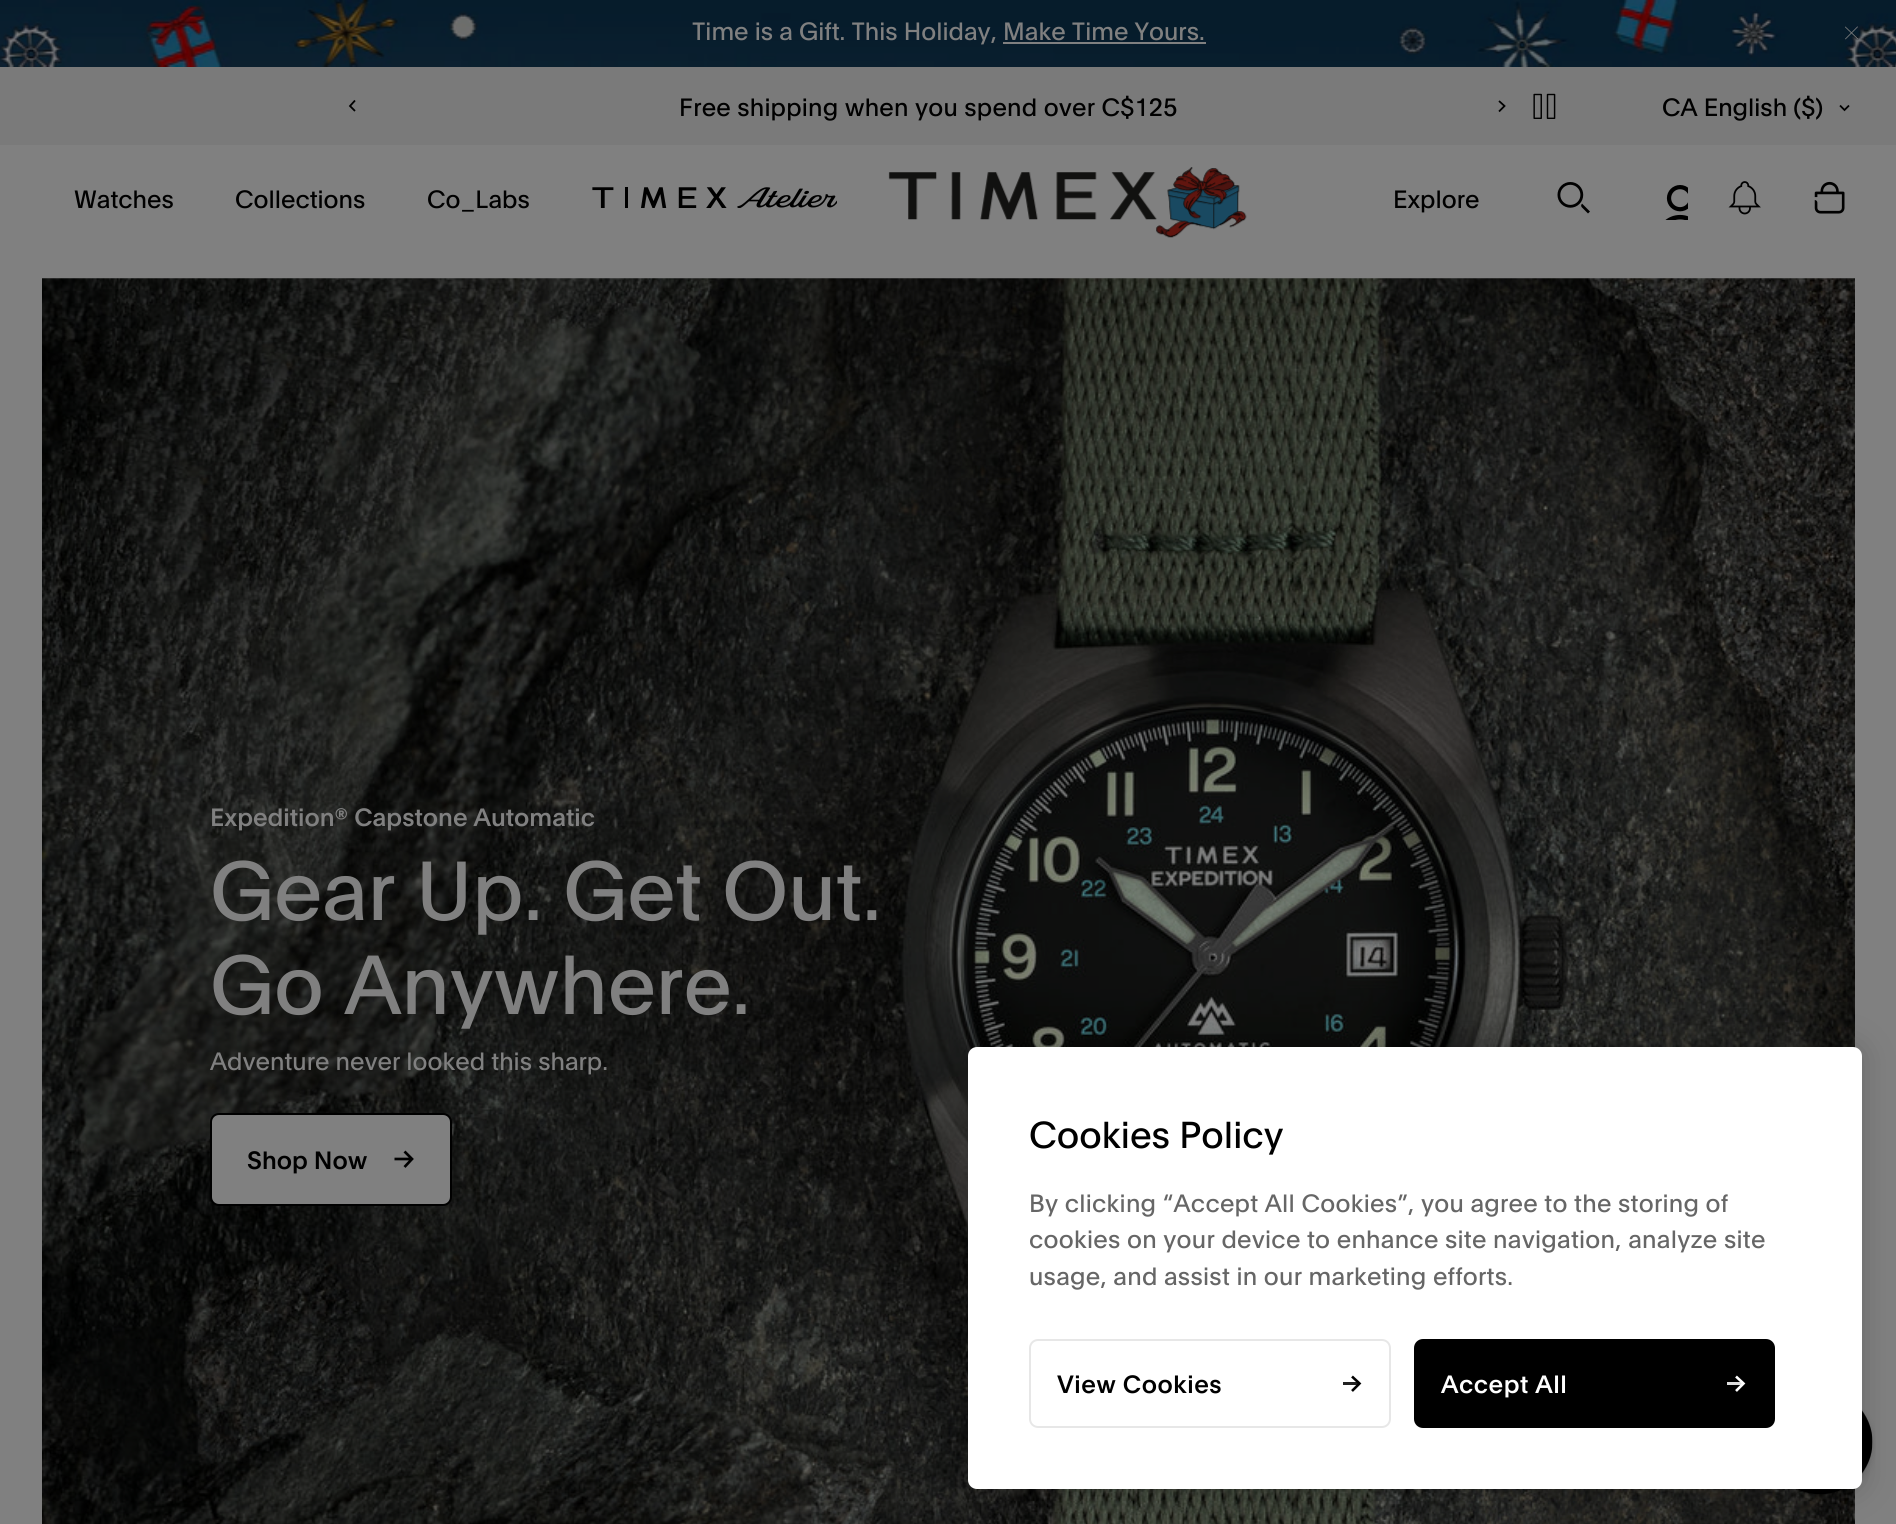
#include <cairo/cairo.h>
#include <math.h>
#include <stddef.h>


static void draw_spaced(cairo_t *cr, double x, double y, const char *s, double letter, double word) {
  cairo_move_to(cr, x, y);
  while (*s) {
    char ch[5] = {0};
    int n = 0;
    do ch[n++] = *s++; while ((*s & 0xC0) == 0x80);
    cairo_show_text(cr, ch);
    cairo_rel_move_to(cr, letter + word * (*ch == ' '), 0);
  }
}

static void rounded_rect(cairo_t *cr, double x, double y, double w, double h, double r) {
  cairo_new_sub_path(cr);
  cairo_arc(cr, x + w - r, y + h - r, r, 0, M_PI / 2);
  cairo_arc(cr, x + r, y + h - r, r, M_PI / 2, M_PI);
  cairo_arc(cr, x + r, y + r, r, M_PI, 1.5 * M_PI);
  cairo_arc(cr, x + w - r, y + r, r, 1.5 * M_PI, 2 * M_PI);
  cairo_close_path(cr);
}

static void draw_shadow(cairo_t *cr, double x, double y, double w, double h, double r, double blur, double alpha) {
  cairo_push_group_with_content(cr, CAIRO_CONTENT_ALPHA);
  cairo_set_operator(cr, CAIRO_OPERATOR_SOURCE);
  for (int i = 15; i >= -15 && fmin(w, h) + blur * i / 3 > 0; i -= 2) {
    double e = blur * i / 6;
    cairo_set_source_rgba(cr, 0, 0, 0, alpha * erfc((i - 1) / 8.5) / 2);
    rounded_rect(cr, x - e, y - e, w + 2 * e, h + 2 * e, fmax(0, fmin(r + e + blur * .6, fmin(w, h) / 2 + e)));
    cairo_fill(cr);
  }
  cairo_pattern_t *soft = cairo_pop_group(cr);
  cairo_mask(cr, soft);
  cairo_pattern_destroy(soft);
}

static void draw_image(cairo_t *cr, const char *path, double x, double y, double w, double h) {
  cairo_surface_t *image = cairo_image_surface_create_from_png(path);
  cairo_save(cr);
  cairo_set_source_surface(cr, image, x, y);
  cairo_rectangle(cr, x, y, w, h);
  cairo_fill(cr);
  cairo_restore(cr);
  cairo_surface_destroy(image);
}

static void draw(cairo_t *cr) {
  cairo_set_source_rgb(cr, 128 / 255.0, 128 / 255.0, 128 / 255.0);
  cairo_paint(cr);
  draw_image(cr, "images/1.png", 0, 0, 1896, 67);
  cairo_set_source_rgb(cr, 128 / 255.0, 128 / 255.0, 128 / 255.0);
  cairo_rectangle(cr, 1003, 42, 203, 2);
  cairo_fill(cr);
  draw_image(cr, "images/2.png", 1845, 26, 13, 14);
  cairo_set_source_rgb(cr, 122 / 255.0, 122 / 255.0, 122 / 255.0);
  cairo_rectangle(cr, 0, 67, 1896, 78);
  cairo_fill(cr);
  cairo_new_path(cr);
  cairo_move_to(cr, 355, 100.5);
  cairo_line_to(cr, 350, 106);
  cairo_line_to(cr, 355, 111);
  cairo_set_source_rgb(cr, 0, 0, 0);
  cairo_set_line_width(cr, 1.8);
  cairo_stroke(cr);
  cairo_new_path(cr);
  cairo_move_to(cr, 1499, 111.5);
  cairo_line_to(cr, 1504.5, 106);
  cairo_line_to(cr, 1499, 101);
  cairo_stroke(cr);
  draw_image(cr, "images/3.png", 1533, 93, 23, 26);
  cairo_new_path(cr);
  cairo_move_to(cr, 1840, 105.5);
  cairo_line_to(cr, 1844.5, 110);
  cairo_line_to(cr, 1849, 105.5);
  cairo_stroke(cr);
  draw_image(cr, "images/4.png", 592, 187, 245, 21);
  draw_image(cr, "images/5.png", 888, 167, 359, 71);
  draw_image(cr, "images/6.png", 1557, 182, 33, 32);
  draw_image(cr, "images/7.png", 1665, 185, 23, 35);
  draw_image(cr, "images/8.png", 1728, 181, 33, 34);
  draw_image(cr, "images/9.png", 1814, 181, 31, 33);
  draw_image(cr, "images/10.png", 42, 278, 1813, 1246);
  cairo_set_source_rgb(cr, 128 / 255.0, 128 / 255.0, 128 / 255.0);
  rounded_rect(cr, 211, 1114, 240, 91, 8);
  cairo_fill_preserve(cr);
  cairo_set_source_rgb(cr, 0, 0, 0);
  cairo_set_line_width(cr, 2);
  cairo_stroke(cr);
  cairo_new_path(cr);
  cairo_move_to(cr, 404.5, 1151.5);
  cairo_line_to(cr, 412, 1159);
  cairo_line_to(cr, 404.5, 1167);
  cairo_move_to(cr, 411.5, 1159);
  cairo_line_to(cr, 394.5, 1159);
  cairo_set_line_width(cr, 2.7);
  cairo_stroke(cr);
  draw_image(cr, "images/11.png", 1786, 1409, 90, 90);
  cairo_set_source_rgb(cr, 0, 0, 0);
  draw_shadow(cr, 968, 1047, 894, 442, 9, 16, 0.2);
  cairo_set_source_rgb(cr, 1, 1, 1);
  rounded_rect(cr, 968, 1047, 894, 442, 9);
  cairo_fill(cr);
  rounded_rect(cr, 1030, 1340, 360, 87, 8);
  cairo_set_source_rgb(cr, 231 / 255.0, 231 / 255.0, 231 / 255.0);
  cairo_set_line_width(cr, 2);
  cairo_stroke(cr);
  cairo_new_path(cr);
  cairo_move_to(cr, 1352, 1376.5);
  cairo_line_to(cr, 1359.5, 1383.5);
  cairo_line_to(cr, 1352, 1391);
  cairo_set_source_rgb(cr, 0, 0, 0);
  cairo_set_line_width(cr, 2.6);
  cairo_stroke(cr);
  cairo_set_source_rgba(cr, 0, 0, 0, 0.87);
  cairo_rectangle(cr, 1343, 1382, 16, 3);
  cairo_fill(cr);
  cairo_set_source_rgb(cr, 0, 0, 0);
  rounded_rect(cr, 1415, 1340, 359, 87, 8);
  cairo_fill_preserve(cr);
  cairo_set_line_width(cr, 2);
  cairo_stroke(cr);
  cairo_new_path(cr);
  cairo_move_to(cr, 1736, 1376.5);
  cairo_line_to(cr, 1743.5, 1383.5);
  cairo_line_to(cr, 1736, 1391);
  cairo_set_source_rgb(cr, 1, 1, 1);
  cairo_set_line_width(cr, 2.6);
  cairo_stroke(cr);
  cairo_set_source_rgba(cr, 1, 1, 1, 0.87);
  cairo_rectangle(cr, 1727, 1382, 16, 3);
  cairo_fill(cr);
  cairo_select_font_face(cr, "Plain", CAIRO_FONT_SLANT_NORMAL, CAIRO_FONT_WEIGHT_NORMAL);
  cairo_set_font_size(cr, 24.5);
  cairo_set_source_rgb(cr, 128 / 255.0, 128 / 255.0, 128 / 255.0);
  cairo_move_to(cr, 692, 40);
  cairo_show_text(cr, "Time is a Gift. This Holiday, Make Time Yours.");
  cairo_set_source_rgb(cr, 0, 0, 0);
  draw_spaced(cr, 679, 116, "Free shipping when you spend over C$125", 0.2, 0);
  cairo_move_to(cr, 1662, 116);
  cairo_show_text(cr, "CA English ($)");
  cairo_move_to(cr, 74, 208);
  cairo_show_text(cr, "Watches");
  cairo_move_to(cr, 235, 208);
  cairo_show_text(cr, "Collections");
  cairo_move_to(cr, 427, 208);
  cairo_show_text(cr, "Co_Labs");
  cairo_move_to(cr, 1393, 208);
  cairo_show_text(cr, "Explore");
  cairo_select_font_face(cr, "Plain Medium", CAIRO_FONT_SLANT_NORMAL, CAIRO_FONT_WEIGHT_NORMAL);
  cairo_set_source_rgb(cr, 128 / 255.0, 128 / 255.0, 128 / 255.0);
  cairo_move_to(cr, 210, 826);
  cairo_show_text(cr, "Expedition® Capstone Automatic");
  cairo_select_font_face(cr, "Plain", CAIRO_FONT_SLANT_NORMAL, CAIRO_FONT_WEIGHT_NORMAL);
  cairo_set_font_size(cr, 81.75);
  cairo_move_to(cr, 210, 920);
  cairo_show_text(cr, "Gear Up. Get Out.");
  cairo_move_to(cr, 210, 1014);
  cairo_show_text(cr, "Go Anywhere.");
  cairo_set_font_size(cr, 24.5);
  cairo_move_to(cr, 210, 1070);
  cairo_show_text(cr, "Adventure never looked this sharp.");
  cairo_select_font_face(cr, "Plain Medium", CAIRO_FONT_SLANT_NORMAL, CAIRO_FONT_WEIGHT_NORMAL);
  cairo_set_source_rgb(cr, 0, 0, 0);
  cairo_move_to(cr, 247, 1169);
  cairo_show_text(cr, "Shop Now");
  cairo_select_font_face(cr, "Plain", CAIRO_FONT_SLANT_NORMAL, CAIRO_FONT_WEIGHT_NORMAL);
  cairo_set_font_size(cr, 36.75);
  cairo_move_to(cr, 1029, 1148);
  cairo_show_text(cr, "Cookies Policy");
  cairo_set_font_size(cr, 24.5);
  cairo_set_source_rgb(cr, 102 / 255.0, 102 / 255.0, 102 / 255.0);
  draw_spaced(cr, 1029, 1212, "By clicking “Accept All Cookies”, you agree to the storing of", 0.25, 0);
  draw_spaced(cr, 1029, 1248, "cookies on your device to enhance site navigation, analyze site", 0.25, 0);
  draw_spaced(cr, 1029, 1285, "usage, and assist in our marketing efforts.", 0.25, 0);
  cairo_select_font_face(cr, "Plain Medium", CAIRO_FONT_SLANT_NORMAL, CAIRO_FONT_WEIGHT_NORMAL);
  cairo_set_source_rgb(cr, 0, 0, 0);
  draw_spaced(cr, 1057, 1393, "View Cookies", 0.5, 0);
  cairo_set_source_rgb(cr, 1, 1, 1);
  draw_spaced(cr, 1441, 1393, "Accept All", 0.5, 0);
}

int main(void) {
  cairo_surface_t *surface = cairo_image_surface_create(CAIRO_FORMAT_RGB24, 1896, 1524);
  cairo_t *cr = cairo_create(surface);
  cairo_font_options_t *options = cairo_font_options_create();
  cairo_font_options_set_hint_metrics(options, CAIRO_HINT_METRICS_OFF);
  cairo_font_options_set_hint_style(options, CAIRO_HINT_STYLE_NONE);
  cairo_set_font_options(cr, options);
  cairo_set_miter_limit(cr, 4);
  draw(cr);
  cairo_surface_write_to_png(surface, "out.png");
  cairo_font_options_destroy(options);
  cairo_destroy(cr);
  cairo_surface_destroy(surface);
  return 0;
}
